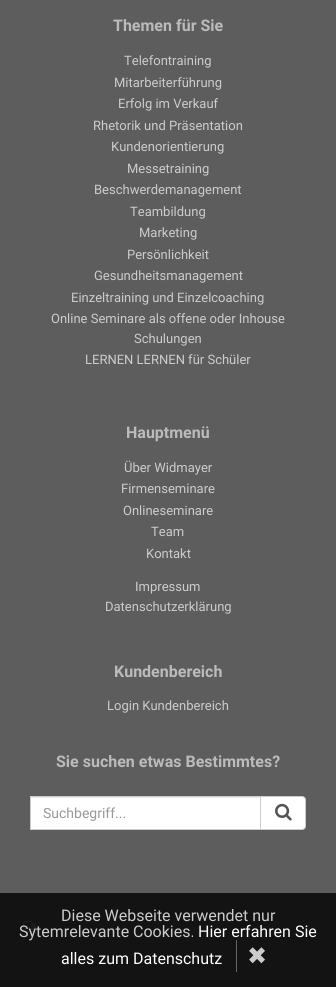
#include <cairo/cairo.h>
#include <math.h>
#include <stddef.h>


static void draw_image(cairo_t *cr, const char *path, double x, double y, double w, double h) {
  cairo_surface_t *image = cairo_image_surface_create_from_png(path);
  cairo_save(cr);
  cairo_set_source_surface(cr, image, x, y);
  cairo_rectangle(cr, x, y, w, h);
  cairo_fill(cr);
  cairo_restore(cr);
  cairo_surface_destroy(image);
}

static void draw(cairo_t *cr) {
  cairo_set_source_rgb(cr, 93 / 255.0, 93 / 255.0, 93 / 255.0);
  cairo_paint(cr);
  cairo_set_source_rgb(cr, 19 / 255.0, 19 / 255.0, 19 / 255.0);
  cairo_rectangle(cr, 0, 893, 336, 94);
  cairo_fill(cr);
  cairo_set_source_rgb(cr, 1, 1, 1);
  cairo_rectangle(cr, 31, 798, 229, 31);
  cairo_fill(cr);
  cairo_set_source_rgb(cr, 236 / 255.0, 236 / 255.0, 236 / 255.0);
  cairo_rectangle(cr, 31, 797, 229, 1);
  cairo_fill(cr);
  cairo_set_source_rgb(cr, 1, 1, 1);
  cairo_new_path(cr);
  cairo_move_to(cr, 260.5, 796.5);
  cairo_line_to(cr, 302, 796.5);
  cairo_curve_to(cr, 304, 796.5, 305.5, 798, 305.5, 800);
  cairo_line_to(cr, 305.5, 826);
  cairo_curve_to(cr, 305.5, 828, 304, 829.5, 302, 829.5);
  cairo_line_to(cr, 260.5, 829.5);
  cairo_close_path(cr);
  cairo_fill_preserve(cr);
  cairo_set_source_rgb(cr, 204 / 255.0, 204 / 255.0, 204 / 255.0);
  cairo_set_line_width(cr, 1);
  cairo_stroke(cr);
  cairo_rectangle(cr, 30.5, 796.5, 230, 33);
  cairo_stroke(cr);
  draw_image(cr, "images/1.png", 275, 803, 17, 18);
  draw_image(cr, "images/2.png", 23, 920, 13, 11);
  cairo_set_source_rgb(cr, 102 / 255.0, 102 / 255.0, 102 / 255.0);
  cairo_rectangle(cr, 236, 940, 1, 32);
  cairo_fill(cr);
  cairo_select_font_face(cr, "Roboto", CAIRO_FONT_SLANT_NORMAL, CAIRO_FONT_WEIGHT_BOLD);
  cairo_set_font_size(cr, 16);
  cairo_set_source_rgb(cr, 187 / 255.0, 187 / 255.0, 187 / 255.0);
  cairo_move_to(cr, 113, 31);
  cairo_show_text(cr, "Themen für Sie");
  cairo_select_font_face(cr, "Roboto", CAIRO_FONT_SLANT_NORMAL, CAIRO_FONT_WEIGHT_NORMAL);
  cairo_set_font_size(cr, 13);
  cairo_set_source_rgb(cr, 204 / 255.0, 204 / 255.0, 204 / 255.0);
  cairo_move_to(cr, 124, 65);
  cairo_show_text(cr, "Telefontraining");
  cairo_move_to(cr, 114, 87);
  cairo_show_text(cr, "Mitarbeiterführung");
  cairo_move_to(cr, 118, 108);
  cairo_show_text(cr, "Erfolg im Verkauf");
  cairo_move_to(cr, 93, 130);
  cairo_show_text(cr, "Rhetorik und Präsentation");
  cairo_move_to(cr, 111, 151);
  cairo_show_text(cr, "Kundenorientierung");
  cairo_move_to(cr, 127, 173);
  cairo_show_text(cr, "Messetraining");
  cairo_move_to(cr, 94, 194);
  cairo_show_text(cr, "Beschwerdemanagement");
  cairo_move_to(cr, 130, 216);
  cairo_show_text(cr, "Teambildung");
  cairo_move_to(cr, 139, 237);
  cairo_show_text(cr, "Marketing");
  cairo_move_to(cr, 127, 259);
  cairo_show_text(cr, "Persönlichkeit");
  cairo_move_to(cr, 94, 280);
  cairo_show_text(cr, "Gesundheitsmanagement");
  cairo_move_to(cr, 71, 302);
  cairo_show_text(cr, "Einzeltraining und Einzelcoaching");
  cairo_move_to(cr, 51, 323);
  cairo_show_text(cr, "Online Seminare als offene oder Inhouse");
  cairo_move_to(cr, 134, 343);
  cairo_show_text(cr, "Schulungen");
  cairo_move_to(cr, 85, 364);
  cairo_show_text(cr, "LERNEN LERNEN für Schüler");
  cairo_select_font_face(cr, "Roboto", CAIRO_FONT_SLANT_NORMAL, CAIRO_FONT_WEIGHT_BOLD);
  cairo_set_font_size(cr, 16);
  cairo_set_source_rgb(cr, 187 / 255.0, 187 / 255.0, 187 / 255.0);
  cairo_move_to(cr, 126, 438);
  cairo_show_text(cr, "Hauptmenü");
  cairo_select_font_face(cr, "Roboto", CAIRO_FONT_SLANT_NORMAL, CAIRO_FONT_WEIGHT_NORMAL);
  cairo_set_font_size(cr, 13);
  cairo_set_source_rgb(cr, 204 / 255.0, 204 / 255.0, 204 / 255.0);
  cairo_move_to(cr, 124, 472);
  cairo_show_text(cr, "Über Widmayer");
  cairo_move_to(cr, 121, 493);
  cairo_show_text(cr, "Firmenseminare");
  cairo_move_to(cr, 123, 515);
  cairo_show_text(cr, "Onlineseminare");
  cairo_move_to(cr, 151, 536);
  cairo_show_text(cr, "Team");
  cairo_move_to(cr, 146, 558);
  cairo_show_text(cr, "Kontakt");
  cairo_move_to(cr, 135, 591);
  cairo_show_text(cr, "Impressum");
  cairo_move_to(cr, 105, 611);
  cairo_show_text(cr, "Datenschutzerklärung");
  cairo_select_font_face(cr, "Roboto", CAIRO_FONT_SLANT_NORMAL, CAIRO_FONT_WEIGHT_BOLD);
  cairo_set_font_size(cr, 16);
  cairo_set_source_rgb(cr, 187 / 255.0, 187 / 255.0, 187 / 255.0);
  cairo_move_to(cr, 114, 677);
  cairo_show_text(cr, "Kundenbereich");
  cairo_select_font_face(cr, "Roboto", CAIRO_FONT_SLANT_NORMAL, CAIRO_FONT_WEIGHT_NORMAL);
  cairo_set_font_size(cr, 13);
  cairo_set_source_rgb(cr, 204 / 255.0, 204 / 255.0, 204 / 255.0);
  cairo_move_to(cr, 107, 710);
  cairo_show_text(cr, "Login Kundenbereich");
  cairo_select_font_face(cr, "Roboto", CAIRO_FONT_SLANT_NORMAL, CAIRO_FONT_WEIGHT_BOLD);
  cairo_set_font_size(cr, 16);
  cairo_set_source_rgb(cr, 187 / 255.0, 187 / 255.0, 187 / 255.0);
  cairo_move_to(cr, 56, 767);
  cairo_show_text(cr, "Sie suchen etwas Bestimmtes?");
  cairo_select_font_face(cr, "Roboto", CAIRO_FONT_SLANT_NORMAL, CAIRO_FONT_WEIGHT_NORMAL);
  cairo_set_font_size(cr, 14);
  cairo_set_source_rgb(cr, 153 / 255.0, 153 / 255.0, 153 / 255.0);
  cairo_move_to(cr, 43, 818);
  cairo_show_text(cr, "Suchbegriff...");
  cairo_set_font_size(cr, 16);
  cairo_set_source_rgb(cr, 204 / 255.0, 204 / 255.0, 204 / 255.0);
  cairo_move_to(cr, 61, 921);
  cairo_show_text(cr, "Diese Webseite verwendet nur");
  cairo_move_to(cr, 19, 937);
  cairo_show_text(cr, "Sytemrelevante Cookies.");
  cairo_set_source_rgb(cr, 1, 1, 1);
  cairo_move_to(cr, 198, 937);
  cairo_show_text(cr, "Hier erfahren Sie");
  cairo_move_to(cr, 61, 964);
  cairo_show_text(cr, "alles zum Datenschutz");
  cairo_select_font_face(cr, "DejaVu Sans", CAIRO_FONT_SLANT_NORMAL, CAIRO_FONT_WEIGHT_NORMAL);
  cairo_set_font_size(cr, 24);
  cairo_set_source_rgb(cr, 204 / 255.0, 204 / 255.0, 204 / 255.0);
  cairo_move_to(cr, 247, 964);
  cairo_show_text(cr, "✖");
}

int main(void) {
  cairo_surface_t *surface = cairo_image_surface_create(CAIRO_FORMAT_RGB24, 336, 987);
  cairo_t *cr = cairo_create(surface);
  cairo_font_options_t *options = cairo_font_options_create();
  cairo_font_options_set_hint_metrics(options, CAIRO_HINT_METRICS_OFF);
  cairo_font_options_set_hint_style(options, CAIRO_HINT_STYLE_NONE);
  cairo_set_font_options(cr, options);
  cairo_set_miter_limit(cr, 4);
  draw(cr);
  cairo_surface_write_to_png(surface, "out.png");
  cairo_font_options_destroy(options);
  cairo_destroy(cr);
  cairo_surface_destroy(surface);
  return 0;
}
